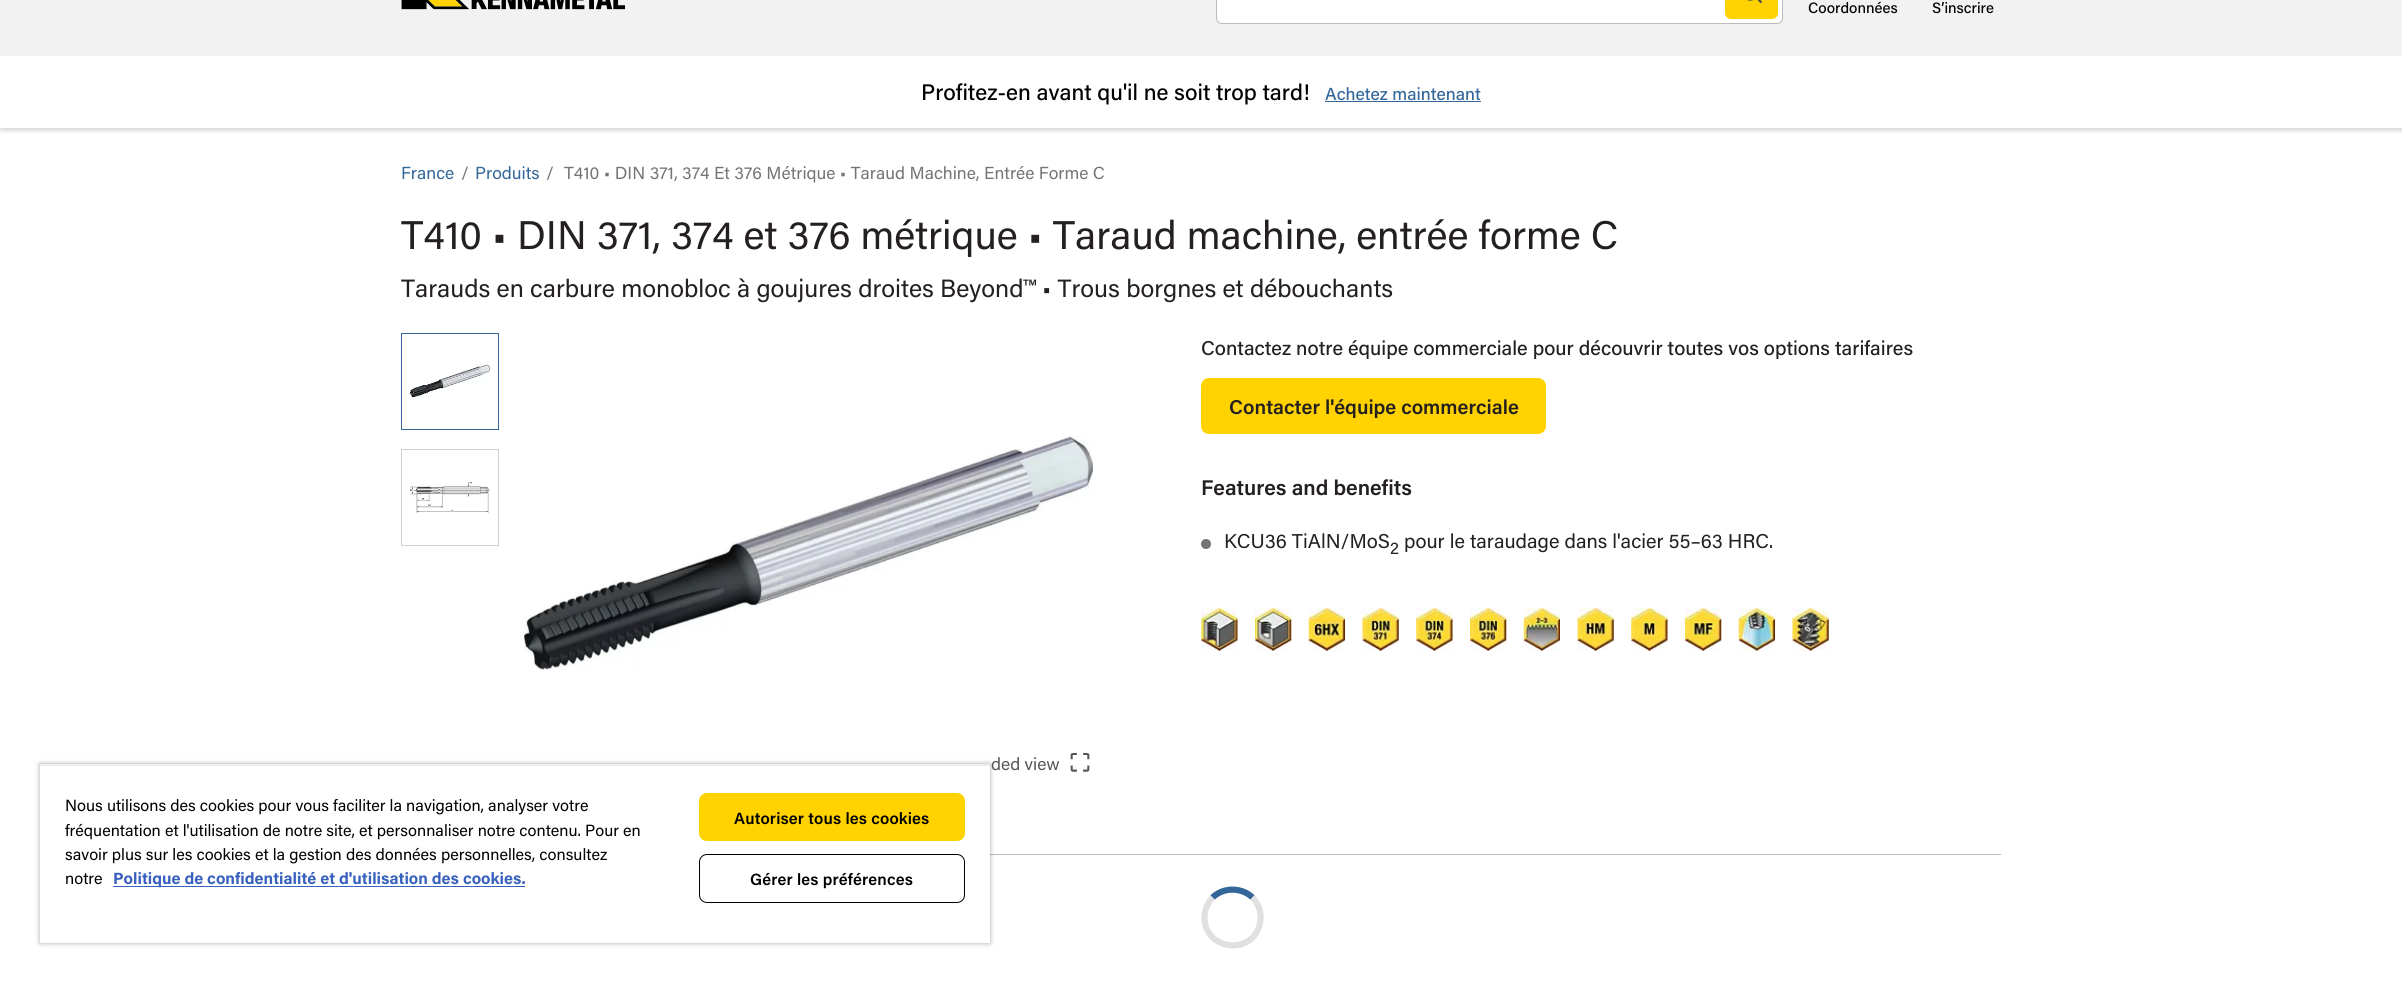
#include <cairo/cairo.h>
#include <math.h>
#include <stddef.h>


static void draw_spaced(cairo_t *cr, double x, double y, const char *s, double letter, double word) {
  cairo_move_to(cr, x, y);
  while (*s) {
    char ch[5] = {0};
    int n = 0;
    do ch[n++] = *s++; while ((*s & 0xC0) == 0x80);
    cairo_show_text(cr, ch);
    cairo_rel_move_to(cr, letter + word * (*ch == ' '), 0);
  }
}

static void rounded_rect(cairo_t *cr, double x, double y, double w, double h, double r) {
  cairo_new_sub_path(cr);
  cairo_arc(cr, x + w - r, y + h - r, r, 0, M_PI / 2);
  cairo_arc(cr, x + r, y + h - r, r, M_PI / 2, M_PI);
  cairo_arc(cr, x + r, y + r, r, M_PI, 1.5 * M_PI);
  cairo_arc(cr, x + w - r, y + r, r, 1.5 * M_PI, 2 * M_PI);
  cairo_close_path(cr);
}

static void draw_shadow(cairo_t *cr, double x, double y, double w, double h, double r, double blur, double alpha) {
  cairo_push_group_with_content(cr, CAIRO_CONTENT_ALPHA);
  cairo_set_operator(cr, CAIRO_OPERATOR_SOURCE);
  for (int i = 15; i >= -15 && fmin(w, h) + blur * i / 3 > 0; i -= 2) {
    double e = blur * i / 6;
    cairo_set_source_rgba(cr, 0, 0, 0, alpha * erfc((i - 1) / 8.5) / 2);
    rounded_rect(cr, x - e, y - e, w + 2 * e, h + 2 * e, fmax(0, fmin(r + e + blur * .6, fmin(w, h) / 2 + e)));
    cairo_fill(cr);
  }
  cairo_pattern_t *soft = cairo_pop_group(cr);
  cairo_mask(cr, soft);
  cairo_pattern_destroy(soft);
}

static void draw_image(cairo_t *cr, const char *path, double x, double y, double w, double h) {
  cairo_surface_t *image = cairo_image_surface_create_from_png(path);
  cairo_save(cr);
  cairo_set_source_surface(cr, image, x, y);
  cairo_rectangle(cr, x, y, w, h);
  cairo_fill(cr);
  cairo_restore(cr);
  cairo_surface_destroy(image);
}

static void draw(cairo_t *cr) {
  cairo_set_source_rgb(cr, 1, 1, 1);
  cairo_paint(cr);
  cairo_set_source_rgb(cr, 242 / 255.0, 242 / 255.0, 242 / 255.0);
  cairo_rectangle(cr, 0, 0, 2402, 56);
  cairo_fill(cr);
  draw_image(cr, "images/1.png", 401, 0, 224, 10);
  cairo_set_source_rgb(cr, 1, 1, 1);
  rounded_rect(cr, 1216.5, -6.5, 566, 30, 5.5);
  cairo_fill_preserve(cr);
  cairo_set_source_rgb(cr, 188 / 255.0, 188 / 255.0, 188 / 255.0);
  cairo_set_line_width(cr, 1);
  cairo_stroke(cr);
  cairo_set_source_rgb(cr, 1, 1, 1);
  cairo_new_path(cr);
  cairo_move_to(cr, 1223, -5);
  cairo_line_to(cr, 1725, -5);
  cairo_line_to(cr, 1725, 23);
  cairo_line_to(cr, 1223, 23);
  cairo_curve_to(cr, 1220, 23, 1218, 21, 1218, 18);
  cairo_line_to(cr, 1218, 0);
  cairo_curve_to(cr, 1218, -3, 1220, -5, 1223, -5);
  cairo_close_path(cr);
  cairo_fill(cr);
  cairo_set_source_rgb(cr, 1, 210 / 255.0, 0);
  rounded_rect(cr, 1725, -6, 53, 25, 6);
  cairo_fill(cr);
  draw_image(cr, "images/2.png", 1746, 0, 16, 3);
  cairo_set_source_rgb(cr, 0, 0, 0);
  draw_shadow(cr, 0, 60, 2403, 71, 0, 2, 0.15);
  cairo_set_source_rgb(cr, 1, 1, 1);
  cairo_rectangle(cr, 0, 57, 2402, 71);
  cairo_fill(cr);
  cairo_set_source_rgb(cr, 51 / 255.0, 102 / 255.0, 153 / 255.0);
  cairo_rectangle(cr, 1325, 101, 156, 1);
  cairo_fill(cr);
  cairo_set_source_rgb(cr, 1, 210 / 255.0, 0);
  rounded_rect(cr, 1202.5, 379.5, 342, 53, 6.5);
  cairo_fill_preserve(cr);
  cairo_set_line_width(cr, 3);
  cairo_stroke(cr);
  cairo_set_source_rgb(cr, 117 / 255.0, 117 / 255.0, 117 / 255.0);
  cairo_arc(cr, 1206, 544, 5, 0, 2 * M_PI);
  cairo_fill(cr);
  draw_image(cr, "images/3.png", 1201, 608, 37, 43);
  draw_image(cr, "images/4.png", 1255, 608, 37, 43);
  draw_image(cr, "images/5.png", 1308, 608, 37, 43);
  draw_image(cr, "images/6.png", 1362, 608, 37, 43);
  draw_image(cr, "images/7.png", 1416, 608, 37, 43);
  draw_image(cr, "images/8.png", 1470, 608, 37, 43);
  draw_image(cr, "images/9.png", 1523, 608, 37, 43);
  draw_image(cr, "images/10.png", 1577, 608, 37, 43);
  draw_image(cr, "images/11.png", 1631, 608, 37, 43);
  draw_image(cr, "images/12.png", 1685, 608, 37, 43);
  draw_image(cr, "images/13.png", 1738, 608, 37, 43);
  draw_image(cr, "images/14.png", 1792, 608, 37, 43);
  cairo_rectangle(cr, 401.5, 333.5, 97, 96);
  cairo_set_source_rgb(cr, 51 / 255.0, 102 / 255.0, 153 / 255.0);
  cairo_set_line_width(cr, 1);
  cairo_stroke(cr);
  draw_image(cr, "images/15.png", 410, 364, 80, 37);
  cairo_rectangle(cr, 401.5, 449.5, 97, 96);
  cairo_set_source_rgb(cr, 206 / 255.0, 206 / 255.0, 206 / 255.0);
  cairo_stroke(cr);
  draw_image(cr, "images/16.png", 410, 482, 80, 32);
  draw_image(cr, "images/17.png", 524, 436, 569, 234);
  draw_image(cr, "images/18.png", 1070, 753, 20, 19);
  cairo_set_source_rgb(cr, 188 / 255.0, 188 / 255.0, 188 / 255.0);
  cairo_rectangle(cr, 990, 854, 1011, 1);
  cairo_fill(cr);
  cairo_new_path(cr);
  cairo_move_to(cr, 1212.5, 897.5);
  cairo_curve_to(cr, 1223.5, 887, 1241.5, 887, 1252.5, 897.5);
  cairo_set_source_rgb(cr, 51 / 255.0, 102 / 255.0, 153 / 255.0);
  cairo_set_line_width(cr, 6.2);
  cairo_stroke(cr);
  cairo_new_path(cr);
  cairo_move_to(cr, 1252.5, 897.5);
  cairo_curve_to(cr, 1259, 904, 1262, 914, 1260, 923);
  cairo_curve_to(cr, 1253.5, 956, 1204.5, 951, 1204.5, 917.5);
  cairo_curve_to(cr, 1204.5, 910, 1207.5, 903, 1212.5, 897.5);
  cairo_set_source_rgb(cr, 224 / 255.0, 224 / 255.0, 224 / 255.0);
  cairo_stroke(cr);
  cairo_save(cr);
  cairo_set_fill_rule(cr, CAIRO_FILL_RULE_EVEN_ODD);
  cairo_new_path(cr);
  cairo_move_to(cr, 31, 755);
  cairo_line_to(cr, 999, 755);
  cairo_line_to(cr, 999, 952);
  cairo_line_to(cr, 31, 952);
  cairo_close_path(cr);
  cairo_move_to(cr, 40, 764);
  cairo_line_to(cr, 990, 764);
  cairo_line_to(cr, 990, 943);
  cairo_line_to(cr, 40, 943);
  cairo_close_path(cr);
  cairo_clip(cr);
  cairo_set_source_rgb(cr, 0, 0, 0);
  draw_shadow(cr, 40, 764, 950, 179, 0, 2.5, 0.35);
  cairo_restore(cr);
  cairo_save(cr);
  cairo_rectangle(cr, 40, 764, 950, 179);
  cairo_clip(cr);
  cairo_set_source_rgb(cr, 0, 0, 0);
  draw_shadow(cr, 40, 766, 950, 177, 0, 2.5, 0.2);
  cairo_restore(cr);
  cairo_set_source_rgb(cr, 1, 1, 1);
  cairo_rectangle(cr, 40, 766, 950, 177);
  cairo_fill(cr);
  cairo_set_source_rgb(cr, 56 / 255.0, 96 / 255.0, 190 / 255.0);
  cairo_rectangle(cr, 113, 886, 412, 1);
  cairo_fill(cr);
  cairo_set_source_rgb(cr, 1, 210 / 255.0, 0);
  rounded_rect(cr, 699.5, 793.5, 265, 47, 7.5);
  cairo_fill_preserve(cr);
  cairo_set_line_width(cr, 1);
  cairo_stroke(cr);
  rounded_rect(cr, 699.5, 854.5, 265, 48, 7.5);
  cairo_set_source_rgb(cr, 0, 0, 0);
  cairo_stroke(cr);
  cairo_select_font_face(cr, "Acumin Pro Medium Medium", CAIRO_FONT_SLANT_NORMAL, CAIRO_FONT_WEIGHT_NORMAL);
  cairo_set_font_size(cr, 15);
  cairo_move_to(cr, 1808, 13);
  cairo_show_text(cr, "Coordonnées");
  cairo_move_to(cr, 1932, 13);
  cairo_show_text(cr, "S’inscrire");
  cairo_set_font_size(cr, 22.5);
  cairo_move_to(cr, 921, 100);
  cairo_show_text(cr, "Profitez-en avant qu'il ne soit trop tard!");
  cairo_set_font_size(cr, 17.5);
  cairo_set_source_rgb(cr, 51 / 255.0, 102 / 255.0, 153 / 255.0);
  cairo_move_to(cr, 1325, 100);
  cairo_show_text(cr, "Achetez maintenant");
  cairo_select_font_face(cr, "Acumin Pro", CAIRO_FONT_SLANT_NORMAL, CAIRO_FONT_WEIGHT_NORMAL);
  cairo_move_to(cr, 401, 179);
  cairo_show_text(cr, "France");
  cairo_set_source_rgb(cr, 117 / 255.0, 117 / 255.0, 117 / 255.0);
  cairo_move_to(cr, 461, 179);
  cairo_show_text(cr, "/");
  cairo_set_source_rgb(cr, 51 / 255.0, 102 / 255.0, 153 / 255.0);
  cairo_move_to(cr, 475, 179);
  cairo_show_text(cr, "Produits");
  cairo_set_source_rgb(cr, 117 / 255.0, 117 / 255.0, 117 / 255.0);
  cairo_move_to(cr, 546, 179);
  cairo_show_text(cr, "/");
  cairo_move_to(cr, 564, 179);
  cairo_show_text(cr, "T410 • DIN 371, 374 Et 376 Métrique • Taraud Machine, Entrée Forme C");
  cairo_set_font_size(cr, 40);
  cairo_set_source_rgb(cr, 35 / 255.0, 32 / 255.0, 31 / 255.0);
  cairo_move_to(cr, 401, 249);
  cairo_show_text(cr, "T410 • DIN 371, 374 et 376 métrique • Taraud machine, entrée forme C");
  cairo_set_font_size(cr, 25);
  cairo_move_to(cr, 401, 297);
  cairo_show_text(cr, "Tarauds en carbure monobloc à goujures droites Beyond™ • Trous borgnes et débouchants");
  cairo_select_font_face(cr, "Acumin Pro Medium Medium", CAIRO_FONT_SLANT_NORMAL, CAIRO_FONT_WEIGHT_NORMAL);
  cairo_set_font_size(cr, 20);
  cairo_move_to(cr, 1201, 355);
  cairo_show_text(cr, "Contactez notre équipe commerciale pour découvrir toutes vos options tarifaires");
  cairo_select_font_face(cr, "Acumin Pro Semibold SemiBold", CAIRO_FONT_SLANT_NORMAL, CAIRO_FONT_WEIGHT_NORMAL);
  cairo_move_to(cr, 1229, 414);
  cairo_show_text(cr, "Contacter l'équipe commerciale");
  cairo_set_font_size(cr, 21.25);
  cairo_move_to(cr, 1201, 495);
  cairo_show_text(cr, "Features and benefits");
  cairo_select_font_face(cr, "Acumin Pro", CAIRO_FONT_SLANT_NORMAL, CAIRO_FONT_WEIGHT_NORMAL);
  cairo_set_font_size(cr, 20);
  cairo_move_to(cr, 1224, 548);
  cairo_show_text(cr, "KCU36 TiAlN/MoS");
  cairo_set_font_size(cr, 17);
  cairo_move_to(cr, 1390, 554);
  cairo_show_text(cr, "2");
  cairo_set_font_size(cr, 20);
  cairo_move_to(cr, 1404, 548);
  cairo_show_text(cr, "pour le taraudage dans l'acier 55–63 HRC.");
  cairo_set_font_size(cr, 17.5);
  cairo_set_source_rgb(cr, 87 / 255.0, 87 / 255.0, 87 / 255.0);
  cairo_move_to(cr, 991, 770);
  cairo_show_text(cr, "ded view");
  cairo_set_font_size(cr, 16.25);
  cairo_set_source_rgb(cr, 0, 0, 0);
  cairo_move_to(cr, 65, 811);
  cairo_show_text(cr, "Nous utilisons des cookies pour vous faciliter la navigation, analyser votre");
  cairo_move_to(cr, 65, 836);
  cairo_show_text(cr, "fréquentation et l'utilisation de notre site, et personnaliser notre contenu. Pour en");
  cairo_move_to(cr, 65, 860);
  cairo_show_text(cr, "savoir plus sur les cookies et la gestion des données personnelles, consultez");
  cairo_move_to(cr, 65, 884);
  cairo_show_text(cr, "notre");
  cairo_select_font_face(cr, "Acumin Pro", CAIRO_FONT_SLANT_NORMAL, CAIRO_FONT_WEIGHT_BOLD);
  cairo_set_source_rgb(cr, 56 / 255.0, 96 / 255.0, 190 / 255.0);
  cairo_move_to(cr, 113, 884);
  cairo_show_text(cr, "Politique de confidentialité et d'utilisation des cookies.");
  cairo_select_font_face(cr, "Acumin Pro Semibold SemiBold", CAIRO_FONT_SLANT_NORMAL, CAIRO_FONT_WEIGHT_NORMAL);
  cairo_set_source_rgb(cr, 0, 0, 0);
  draw_spaced(cr, 734, 824, "Autoriser tous les cookies", 0.15, 0);
  draw_spaced(cr, 750, 885, "Gérer les préférences", 0.15, 0);
}

int main(void) {
  cairo_surface_t *surface = cairo_image_surface_create(CAIRO_FORMAT_RGB24, 2402, 982);
  cairo_t *cr = cairo_create(surface);
  cairo_font_options_t *options = cairo_font_options_create();
  cairo_font_options_set_hint_metrics(options, CAIRO_HINT_METRICS_OFF);
  cairo_font_options_set_hint_style(options, CAIRO_HINT_STYLE_NONE);
  cairo_set_font_options(cr, options);
  cairo_set_miter_limit(cr, 4);
  draw(cr);
  cairo_surface_write_to_png(surface, "out.png");
  cairo_font_options_destroy(options);
  cairo_destroy(cr);
  cairo_surface_destroy(surface);
  return 0;
}
